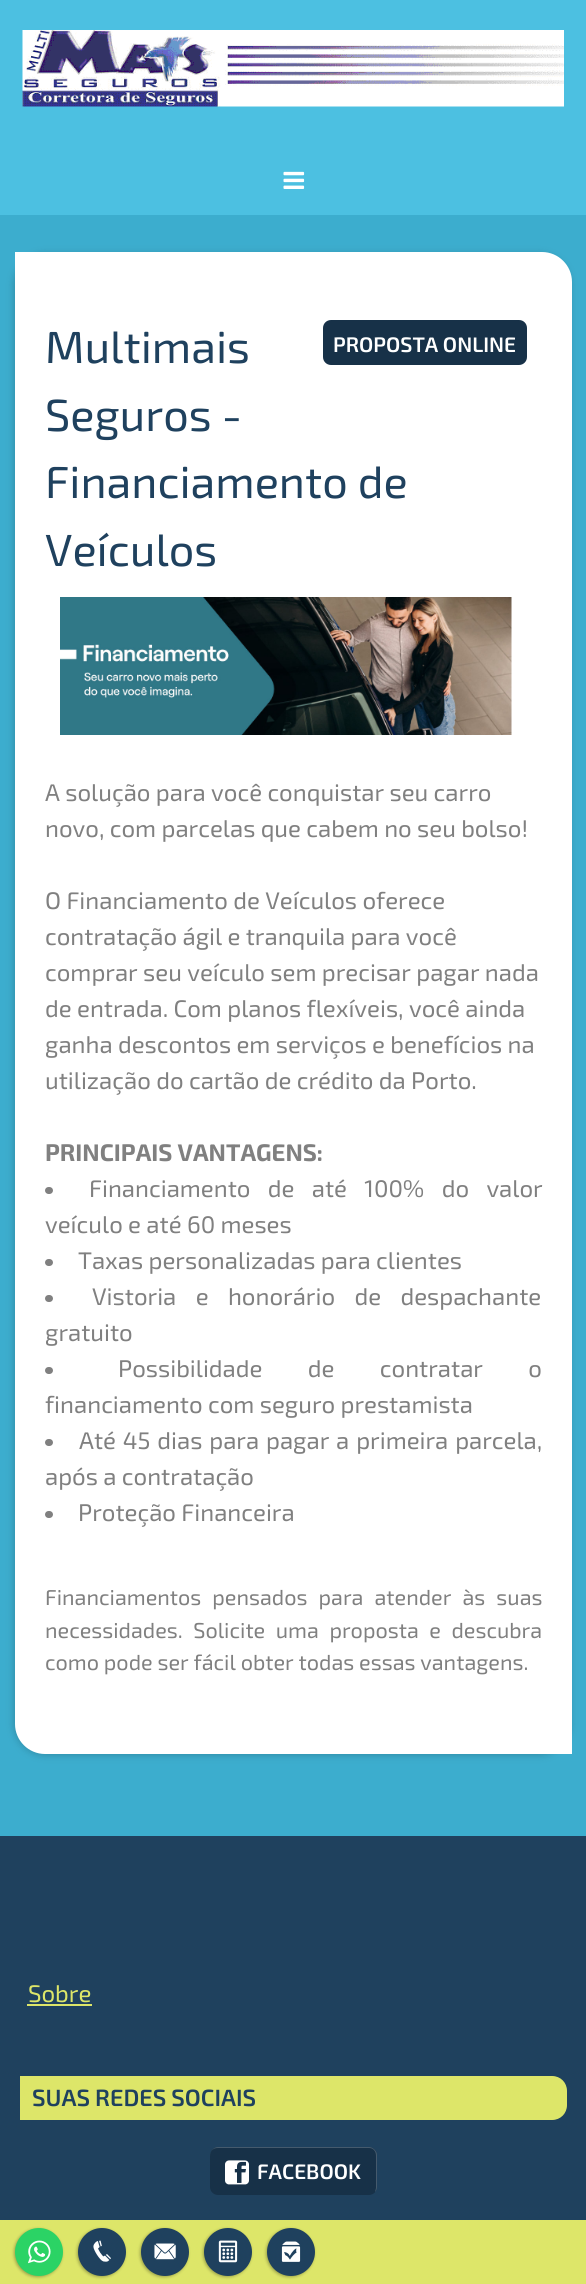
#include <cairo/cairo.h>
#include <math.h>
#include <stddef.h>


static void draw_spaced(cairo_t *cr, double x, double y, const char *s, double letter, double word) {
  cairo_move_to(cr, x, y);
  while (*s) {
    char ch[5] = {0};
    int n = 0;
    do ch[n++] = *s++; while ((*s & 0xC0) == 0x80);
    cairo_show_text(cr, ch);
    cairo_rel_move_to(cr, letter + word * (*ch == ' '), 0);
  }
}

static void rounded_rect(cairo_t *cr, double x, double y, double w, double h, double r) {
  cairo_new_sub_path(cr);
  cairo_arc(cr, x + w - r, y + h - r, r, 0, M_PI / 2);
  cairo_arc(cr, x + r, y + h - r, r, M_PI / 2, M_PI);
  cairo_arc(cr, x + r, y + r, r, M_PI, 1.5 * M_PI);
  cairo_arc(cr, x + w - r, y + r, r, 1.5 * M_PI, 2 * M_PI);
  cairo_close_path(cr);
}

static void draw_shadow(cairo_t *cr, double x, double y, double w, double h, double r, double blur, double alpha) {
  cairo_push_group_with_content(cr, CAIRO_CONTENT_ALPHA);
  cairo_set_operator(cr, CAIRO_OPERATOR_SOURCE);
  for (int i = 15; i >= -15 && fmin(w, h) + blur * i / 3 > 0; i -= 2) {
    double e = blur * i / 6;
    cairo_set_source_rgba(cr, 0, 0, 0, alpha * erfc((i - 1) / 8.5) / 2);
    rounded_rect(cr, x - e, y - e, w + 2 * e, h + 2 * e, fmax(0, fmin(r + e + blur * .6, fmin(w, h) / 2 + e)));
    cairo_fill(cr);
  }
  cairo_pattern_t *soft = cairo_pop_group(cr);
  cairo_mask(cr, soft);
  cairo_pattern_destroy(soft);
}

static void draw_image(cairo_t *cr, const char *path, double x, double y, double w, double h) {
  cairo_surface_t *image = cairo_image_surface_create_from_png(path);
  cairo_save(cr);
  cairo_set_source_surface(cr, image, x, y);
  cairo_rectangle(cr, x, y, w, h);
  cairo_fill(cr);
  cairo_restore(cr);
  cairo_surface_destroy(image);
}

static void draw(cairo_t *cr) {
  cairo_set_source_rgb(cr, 60 / 255.0, 173 / 255.0, 206 / 255.0);
  cairo_paint(cr);
  cairo_set_source_rgb(cr, 76 / 255.0, 192 / 255.0, 225 / 255.0);
  cairo_rectangle(cr, 0, 0, 586, 215);
  cairo_fill(cr);
  draw_image(cr, "images/1.png", 22, 30, 542, 77);
  draw_image(cr, "images/2.png", 283, 171, 22, 18);
  cairo_set_source_rgb(cr, 0, 0, 0);
  draw_shadow(cr, 14, 254, 556, 1501, 30, 4, 0.2);
  cairo_set_source_rgb(cr, 1, 1, 1);
  cairo_new_path(cr);
  cairo_move_to(cr, 15, 252);
  cairo_line_to(cr, 542, 252);
  cairo_curve_to(cr, 558.5, 252, 572, 265.5, 572, 282);
  cairo_line_to(cr, 572, 1754);
  cairo_line_to(cr, 45, 1754);
  cairo_curve_to(cr, 28.5, 1754, 15, 1740.5, 15, 1724);
  cairo_close_path(cr);
  cairo_fill(cr);
  draw_image(cr, "images/3.png", 60, 597, 452, 138);
  cairo_set_source_rgb(cr, 128 / 255.0, 128 / 255.0, 128 / 255.0);
  rounded_rect(cr, 45, 1187, 8, 7, 3.5);
  cairo_fill(cr);
  rounded_rect(cr, 45, 1259, 8, 7, 3.5);
  cairo_fill(cr);
  rounded_rect(cr, 45, 1295, 8, 7, 3.5);
  cairo_fill(cr);
  rounded_rect(cr, 45, 1367, 8, 7, 3.5);
  cairo_fill(cr);
  rounded_rect(cr, 45, 1439, 8, 7, 3.5);
  cairo_fill(cr);
  rounded_rect(cr, 45, 1511, 8, 7, 3.5);
  cairo_fill(cr);
  cairo_set_source_rgb(cr, 23 / 255.0, 49 / 255.0, 72 / 255.0);
  rounded_rect(cr, 324, 321, 202, 43, 7);
  cairo_fill_preserve(cr);
  cairo_stroke(cr);
  cairo_set_source_rgb(cr, 31 / 255.0, 65 / 255.0, 94 / 255.0);
  cairo_rectangle(cr, 0, 1836, 586, 384);
  cairo_fill(cr);
  cairo_set_source_rgb(cr, 221 / 255.0, 230 / 255.0, 105 / 255.0);
  cairo_rectangle(cr, 27, 2004, 65, 2);
  cairo_fill(cr);
  cairo_new_path(cr);
  cairo_move_to(cr, 20, 2076);
  cairo_line_to(cr, 552, 2076);
  cairo_curve_to(cr, 560.5, 2076, 567, 2082.5, 567, 2091);
  cairo_line_to(cr, 567, 2105);
  cairo_curve_to(cr, 567, 2113.5, 560.5, 2120, 552, 2120);
  cairo_line_to(cr, 20, 2120);
  cairo_close_path(cr);
  cairo_fill(cr);
  cairo_set_source_rgb(cr, 23 / 255.0, 49 / 255.0, 72 / 255.0);
  rounded_rect(cr, 210, 2147, 167, 48, 8);
  cairo_fill(cr);
  cairo_set_source_rgba(cr, 1, 1, 1, 0.2);
  cairo_new_path(cr);
  cairo_move_to(cr, 218, 2148);
  cairo_line_to(cr, 369, 2148);
  cairo_curve_to(cr, 373, 2148, 376, 2151, 376, 2156);
  cairo_line_to(cr, 376, 2188);
  cairo_line_to(cr, 375, 2192);
  cairo_curve_to(cr, 376, 2191, 377, 2189, 377, 2187);
  cairo_line_to(cr, 377, 2155);
  cairo_curve_to(cr, 377, 2151, 373, 2147, 369, 2147);
  cairo_line_to(cr, 218, 2147);
  cairo_curve_to(cr, 214, 2147, 210, 2151, 210, 2155);
  cairo_line_to(cr, 210, 2156);
  cairo_curve_to(cr, 210, 2151, 213, 2148, 218, 2148);
  cairo_close_path(cr);
  cairo_fill(cr);
  draw_image(cr, "images/4.png", 225, 2160, 24, 25);
  cairo_set_source_rgb(cr, 221 / 255.0, 230 / 255.0, 105 / 255.0);
  cairo_rectangle(cr, 0, 2220, 586, 64);
  cairo_fill(cr);
  cairo_set_source_rgb(cr, 0, 0, 0);
  draw_shadow(cr, 14, 2229, 48, 48, 24, 1.5, 0.3);
  cairo_set_source_rgb(cr, 43 / 255.0, 211 / 255.0, 101 / 255.0);
  cairo_arc(cr, 39, 2252, 24, 0, 2 * M_PI);
  cairo_fill(cr);
  draw_image(cr, "images/5.png", 28, 2240, 23, 24);
  cairo_set_source_rgb(cr, 0, 0, 0);
  draw_shadow(cr, 77, 2229, 48, 48, 24, 1.5, 0.3);
  cairo_set_source_rgb(cr, 31 / 255.0, 65 / 255.0, 94 / 255.0);
  cairo_arc(cr, 102, 2252, 24, 0, 2 * M_PI);
  cairo_fill(cr);
  draw_image(cr, "images/6.png", 93, 2240, 18, 22);
  cairo_set_source_rgb(cr, 0, 0, 0);
  draw_shadow(cr, 140, 2229, 48, 48, 24, 1.5, 0.3);
  cairo_set_source_rgb(cr, 31 / 255.0, 65 / 255.0, 94 / 255.0);
  cairo_arc(cr, 165, 2252, 24, 0, 2 * M_PI);
  cairo_fill(cr);
  draw_image(cr, "images/7.png", 154, 2243, 22, 17);
  cairo_set_source_rgb(cr, 0, 0, 0);
  draw_shadow(cr, 203, 2229, 48, 48, 24, 1.5, 0.3);
  cairo_set_source_rgb(cr, 31 / 255.0, 65 / 255.0, 94 / 255.0);
  cairo_arc(cr, 228, 2252, 24, 0, 2 * M_PI);
  cairo_fill(cr);
  draw_image(cr, "images/8.png", 218, 2240, 20, 23);
  cairo_set_source_rgb(cr, 0, 0, 0);
  draw_shadow(cr, 266, 2229, 48, 48, 24, 1.5, 0.3);
  cairo_set_source_rgb(cr, 31 / 255.0, 65 / 255.0, 94 / 255.0);
  cairo_arc(cr, 291, 2252, 24, 0, 2 * M_PI);
  cairo_fill(cr);
  draw_image(cr, "images/9.png", 281, 2241, 20, 21);
  cairo_select_font_face(cr, "Exo 2", CAIRO_FONT_SLANT_NORMAL, CAIRO_FONT_WEIGHT_NORMAL);
  cairo_set_font_size(cr, 45);
  cairo_move_to(cr, 45, 363);
  cairo_show_text(cr, "Multimais");
  cairo_move_to(cr, 45, 431);
  cairo_show_text(cr, "Seguros -");
  cairo_move_to(cr, 45, 498);
  cairo_show_text(cr, "Financiamento de");
  cairo_move_to(cr, 45, 566);
  cairo_show_text(cr, "Veículos");
  cairo_set_font_size(cr, 24);
  cairo_set_source_rgb(cr, 128 / 255.0, 128 / 255.0, 128 / 255.0);
  cairo_move_to(cr, 45, 801);
  cairo_show_text(cr, "A solução para você conquistar seu carro");
  cairo_move_to(cr, 45, 837);
  cairo_show_text(cr, "novo, com parcelas que cabem no seu bolso!");
  cairo_move_to(cr, 45, 909);
  cairo_show_text(cr, "O Financiamento de Veículos oferece");
  cairo_move_to(cr, 45, 945);
  cairo_show_text(cr, "contratação ágil e tranquila para você");
  cairo_move_to(cr, 45, 981);
  cairo_show_text(cr, "comprar seu veículo sem precisar pagar nada");
  cairo_move_to(cr, 45, 1017);
  cairo_show_text(cr, "de entrada. Com planos flexíveis, você ainda");
  cairo_move_to(cr, 45, 1053);
  cairo_show_text(cr, "ganha descontos em serviços e benefícios na");
  cairo_move_to(cr, 45, 1089);
  cairo_show_text(cr, "utilização do cartão de crédito da Porto.");
  cairo_select_font_face(cr, "Exo 2", CAIRO_FONT_SLANT_NORMAL, CAIRO_FONT_WEIGHT_BOLD);
  cairo_move_to(cr, 45, 1161);
  cairo_show_text(cr, "PRINCIPAIS VANTAGENS:");
  cairo_select_font_face(cr, "Exo 2", CAIRO_FONT_SLANT_NORMAL, CAIRO_FONT_WEIGHT_NORMAL);
  draw_spaced(cr, 89, 1197, "Financiamento de até 100% do valor", 0, 12);
  cairo_move_to(cr, 45, 1233);
  cairo_show_text(cr, "veículo e até 60 meses");
  cairo_move_to(cr, 78, 1269);
  cairo_show_text(cr, "Taxas personalizadas para clientes");
  draw_spaced(cr, 92, 1305, "Vistoria e honorário de despachante", 0, 14);
  cairo_move_to(cr, 45, 1341);
  cairo_show_text(cr, "gratuito");
  draw_spaced(cr, 118, 1377, "Possibilidade de contratar o", 0, 40);
  cairo_move_to(cr, 45, 1413);
  cairo_show_text(cr, "financiamento com seguro prestamista");
  draw_spaced(cr, 79, 1449, "Até 45 dias para pagar a primeira parcela,", 0, 1.5);
  cairo_move_to(cr, 45, 1485);
  cairo_show_text(cr, "após a contratação");
  cairo_move_to(cr, 78, 1521);
  cairo_show_text(cr, "Proteção Financeira");
  cairo_set_font_size(cr, 21.6);
  draw_spaced(cr, 45, 1605, "Financiamentos pensados para atender às suas", 0, 6.25);
  draw_spaced(cr, 45, 1638, "necessidades. Solicite uma proposta e descubra", 0, 5.75);
  cairo_move_to(cr, 45, 1670);
  cairo_show_text(cr, "como pode ser fácil obter todas essas vantagens.");
  cairo_select_font_face(cr, "Exo 2 SemiBold", CAIRO_FONT_SLANT_NORMAL, CAIRO_FONT_WEIGHT_NORMAL);
  cairo_set_font_size(cr, 21);
  cairo_set_source_rgb(cr, 1, 1, 1);
  cairo_move_to(cr, 333, 352);
  cairo_show_text(cr, "PROPOSTA ONLINE");
  cairo_select_font_face(cr, "Exo 2", CAIRO_FONT_SLANT_NORMAL, CAIRO_FONT_WEIGHT_NORMAL);
  cairo_set_font_size(cr, 24);
  cairo_set_source_rgb(cr, 221 / 255.0, 230 / 255.0, 105 / 255.0);
  cairo_move_to(cr, 28, 2002);
  cairo_show_text(cr, "Sobre");
  cairo_select_font_face(cr, "Exo 2 SemiBold", CAIRO_FONT_SLANT_NORMAL, CAIRO_FONT_WEIGHT_NORMAL);
  cairo_set_font_size(cr, 23.5);
  cairo_set_source_rgb(cr, 31 / 255.0, 65 / 255.0, 94 / 255.0);
  cairo_move_to(cr, 32, 2106);
  cairo_show_text(cr, "SUAS REDES SOCIAIS");
  cairo_set_font_size(cr, 21);
  cairo_set_source_rgb(cr, 1, 1, 1);
  cairo_move_to(cr, 257, 2179);
  cairo_show_text(cr, "FACEBOOK");
}

int main(void) {
  cairo_surface_t *surface = cairo_image_surface_create(CAIRO_FORMAT_RGB24, 586, 2284);
  cairo_t *cr = cairo_create(surface);
  cairo_font_options_t *options = cairo_font_options_create();
  cairo_font_options_set_hint_metrics(options, CAIRO_HINT_METRICS_OFF);
  cairo_font_options_set_hint_style(options, CAIRO_HINT_STYLE_NONE);
  cairo_set_font_options(cr, options);
  cairo_set_miter_limit(cr, 4);
  draw(cr);
  cairo_surface_write_to_png(surface, "out.png");
  cairo_font_options_destroy(options);
  cairo_destroy(cr);
  cairo_surface_destroy(surface);
  return 0;
}
